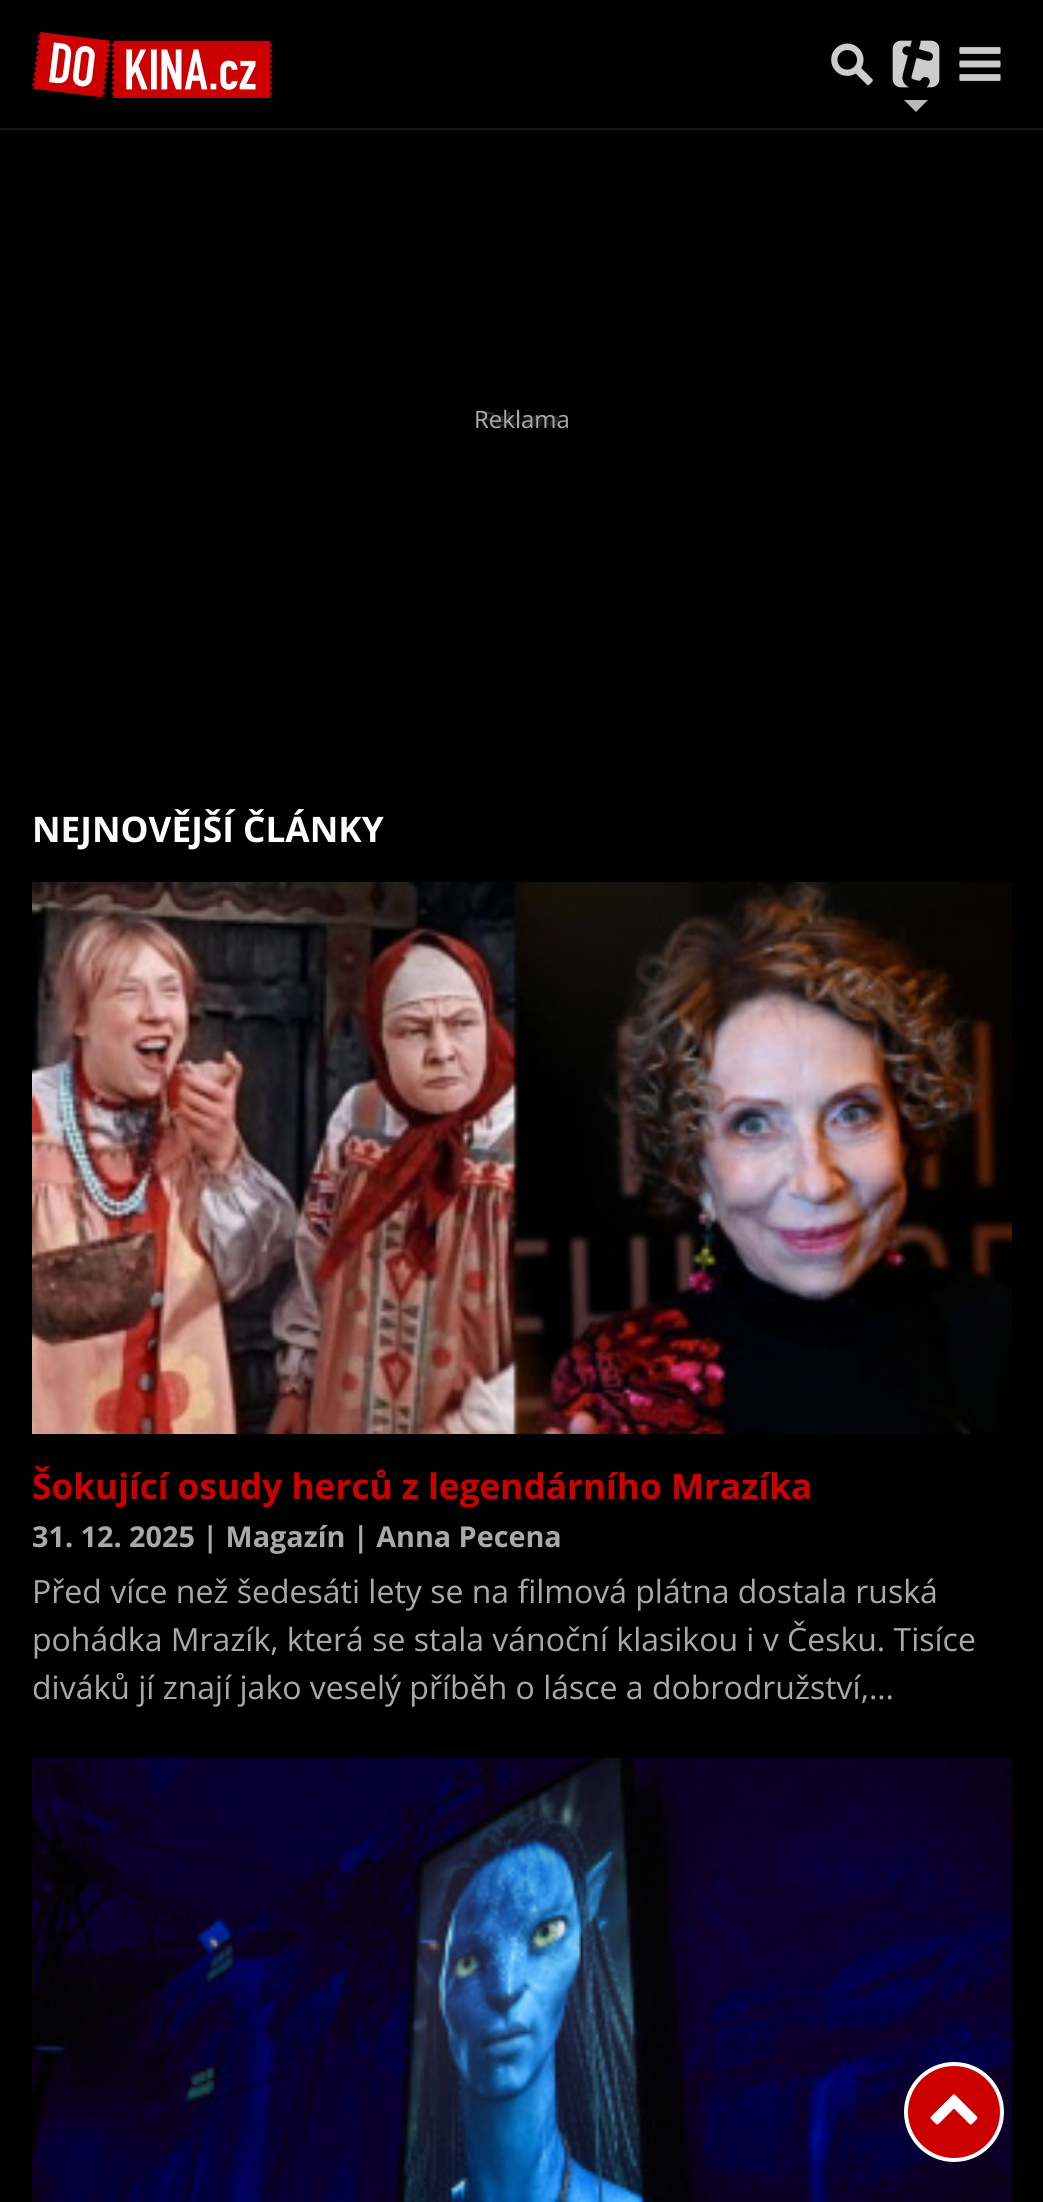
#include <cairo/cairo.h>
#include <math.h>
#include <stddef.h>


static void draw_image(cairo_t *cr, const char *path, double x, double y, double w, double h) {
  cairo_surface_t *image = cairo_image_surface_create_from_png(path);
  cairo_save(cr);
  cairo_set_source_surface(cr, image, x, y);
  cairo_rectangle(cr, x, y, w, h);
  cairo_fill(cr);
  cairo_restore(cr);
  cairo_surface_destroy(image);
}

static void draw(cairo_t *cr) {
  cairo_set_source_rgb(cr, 0, 0, 0);
  cairo_paint(cr);
  cairo_set_source_rgb(cr, 24 / 255.0, 24 / 255.0, 24 / 255.0);
  cairo_rectangle(cr, 0, 128, 1043, 2);
  cairo_fill(cr);
  draw_image(cr, "images/1.png", 32, 32, 240, 66);
  draw_image(cr, "images/2.png", 831, 43, 42, 43);
  draw_image(cr, "images/3.png", 892, 40, 48, 48);
  cairo_set_source_rgb(cr, 185 / 255.0, 185 / 255.0, 185 / 255.0);
  cairo_new_path(cr);
  cairo_move_to(cr, 904, 100);
  cairo_line_to(cr, 928, 100);
  cairo_line_to(cr, 916, 112);
  cairo_close_path(cr);
  cairo_fill(cr);
  draw_image(cr, "images/4.png", 959, 47, 42, 34);
  draw_image(cr, "images/5.png", 481, 411, 80, 16);
  draw_image(cr, "images/6.png", 32, 882, 980, 552);
  draw_image(cr, "images/7.png", 32, 1758, 980, 444);
  cairo_set_source_rgb(cr, 1, 1, 1);
  cairo_arc(cr, 954, 2112, 50, 0, 2 * M_PI);
  cairo_fill(cr);
  cairo_set_source_rgb(cr, 204 / 255.0, 0, 0);
  cairo_arc(cr, 954, 2112, 46, 0, 2 * M_PI);
  cairo_fill(cr);
  draw_image(cr, "images/8.png", 930, 2094, 48, 31);
  cairo_select_font_face(cr, "Open Sans", CAIRO_FONT_SLANT_NORMAL, CAIRO_FONT_WEIGHT_NORMAL);
  cairo_set_font_size(cr, 24);
  cairo_set_source_rgb(cr, 169 / 255.0, 169 / 255.0, 169 / 255.0);
  cairo_move_to(cr, 474, 428);
  cairo_show_text(cr, "Reklama");
  cairo_select_font_face(cr, "Open Sans", CAIRO_FONT_SLANT_NORMAL, CAIRO_FONT_WEIGHT_BOLD);
  cairo_set_font_size(cr, 35.2);
  cairo_set_source_rgb(cr, 1, 1, 1);
  cairo_move_to(cr, 32, 842);
  cairo_show_text(cr, "NEJNOVĚJŠÍ ČLÁNKY");
  cairo_set_source_rgb(cr, 204 / 255.0, 0, 0);
  cairo_move_to(cr, 32, 1499);
  cairo_show_text(cr, "Šokující osudy herců z legendárního Mrazíka");
  cairo_set_font_size(cr, 28.75);
  cairo_set_source_rgb(cr, 169 / 255.0, 169 / 255.0, 169 / 255.0);
  cairo_move_to(cr, 32, 1547);
  cairo_show_text(cr, "31. 12. 2025 | Magazín | Anna Pecena");
  cairo_select_font_face(cr, "Open Sans", CAIRO_FONT_SLANT_NORMAL, CAIRO_FONT_WEIGHT_NORMAL);
  cairo_set_font_size(cr, 32);
  cairo_move_to(cr, 32, 1603);
  cairo_show_text(cr, "Před více než šedesáti lety se na filmová plátna dostala ruská");
  cairo_move_to(cr, 32, 1651);
  cairo_show_text(cr, "pohádka Mrazík, která se stala vánoční klasikou i v Česku. Tisíce");
  cairo_move_to(cr, 32, 1699);
  cairo_show_text(cr, "diváků jí znají jako veselý příběh o lásce a dobrodružství,…");
}

int main(void) {
  cairo_surface_t *surface = cairo_image_surface_create(CAIRO_FORMAT_RGB24, 1043, 2202);
  cairo_t *cr = cairo_create(surface);
  cairo_font_options_t *options = cairo_font_options_create();
  cairo_font_options_set_hint_metrics(options, CAIRO_HINT_METRICS_OFF);
  cairo_font_options_set_hint_style(options, CAIRO_HINT_STYLE_NONE);
  cairo_set_font_options(cr, options);
  cairo_set_miter_limit(cr, 4);
  draw(cr);
  cairo_surface_write_to_png(surface, "out.png");
  cairo_font_options_destroy(options);
  cairo_destroy(cr);
  cairo_surface_destroy(surface);
  return 0;
}
